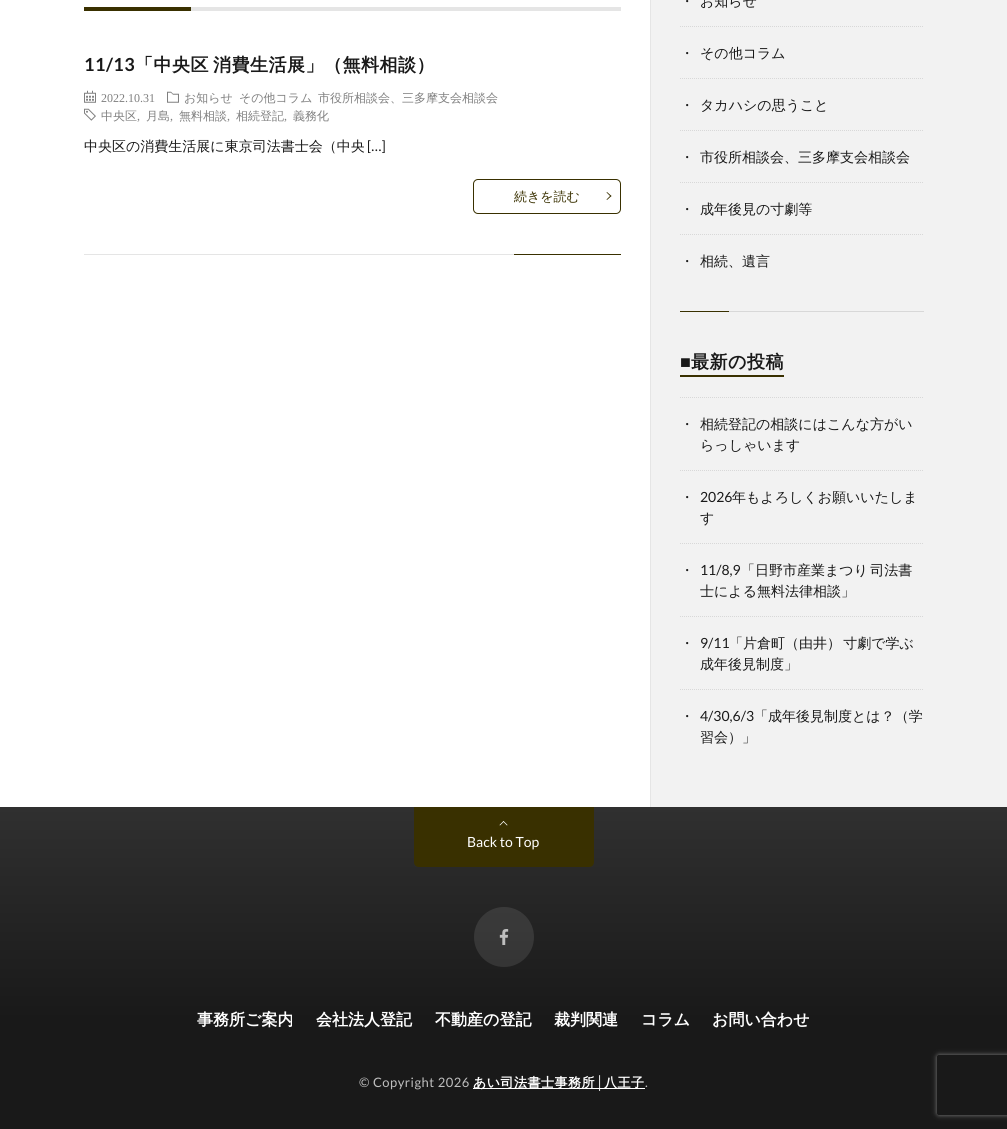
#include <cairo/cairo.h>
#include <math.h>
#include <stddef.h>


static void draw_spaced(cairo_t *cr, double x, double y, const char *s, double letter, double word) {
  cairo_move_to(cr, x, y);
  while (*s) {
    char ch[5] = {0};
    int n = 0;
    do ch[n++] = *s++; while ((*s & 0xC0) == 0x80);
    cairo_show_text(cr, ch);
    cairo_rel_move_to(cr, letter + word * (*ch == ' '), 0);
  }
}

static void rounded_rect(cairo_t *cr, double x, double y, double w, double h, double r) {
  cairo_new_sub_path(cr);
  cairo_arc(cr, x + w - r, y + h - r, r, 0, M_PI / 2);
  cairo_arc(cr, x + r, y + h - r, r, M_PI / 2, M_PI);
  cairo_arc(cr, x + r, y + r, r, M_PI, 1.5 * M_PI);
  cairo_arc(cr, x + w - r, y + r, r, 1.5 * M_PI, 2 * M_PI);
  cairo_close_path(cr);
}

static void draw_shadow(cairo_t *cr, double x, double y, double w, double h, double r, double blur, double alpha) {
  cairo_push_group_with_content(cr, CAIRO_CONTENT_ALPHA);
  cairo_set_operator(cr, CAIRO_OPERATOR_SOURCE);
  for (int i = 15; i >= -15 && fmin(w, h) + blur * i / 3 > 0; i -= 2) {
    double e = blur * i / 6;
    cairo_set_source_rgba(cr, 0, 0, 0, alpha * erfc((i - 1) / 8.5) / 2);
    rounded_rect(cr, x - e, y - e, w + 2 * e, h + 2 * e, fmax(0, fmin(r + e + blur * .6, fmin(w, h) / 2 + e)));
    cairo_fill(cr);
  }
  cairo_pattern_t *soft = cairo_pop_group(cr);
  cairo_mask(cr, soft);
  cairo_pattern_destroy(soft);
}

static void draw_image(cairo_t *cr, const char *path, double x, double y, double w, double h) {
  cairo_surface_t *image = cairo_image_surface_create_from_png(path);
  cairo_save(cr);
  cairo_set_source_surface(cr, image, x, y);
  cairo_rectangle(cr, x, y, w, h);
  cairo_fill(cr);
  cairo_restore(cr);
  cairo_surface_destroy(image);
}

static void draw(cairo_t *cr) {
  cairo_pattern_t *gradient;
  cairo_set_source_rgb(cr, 242 / 255.0, 242 / 255.0, 242 / 255.0);
  cairo_paint(cr);
  cairo_set_source_rgb(cr, 1, 1, 1);
  cairo_rectangle(cr, 0, 0, 650, 807);
  cairo_fill(cr);
  cairo_set_source_rgb(cr, 229 / 255.0, 229 / 255.0, 229 / 255.0);
  cairo_rectangle(cr, 650, 0, 1, 807);
  cairo_fill(cr);
  cairo_rectangle(cr, 191, 7, 430, 4);
  cairo_fill(cr);
  cairo_set_source_rgb(cr, 57 / 255.0, 48 / 255.0, 0);
  cairo_rectangle(cr, 84, 7, 107, 4);
  cairo_fill(cr);
  cairo_rectangle(cr, 514, 254, 107, 1);
  cairo_fill(cr);
  draw_image(cr, "images/1.png", 84, 90, 12, 13);
  draw_image(cr, "images/2.png", 167, 91, 12, 12);
  draw_image(cr, "images/3.png", 84, 108, 12, 13);
  rounded_rect(cr, 473.5, 179.5, 147, 34, 4.5);
  cairo_set_line_width(cr, 1);
  cairo_stroke(cr);
  cairo_new_path(cr);
  cairo_move_to(cr, 607, 192);
  cairo_line_to(cr, 611.5, 196);
  cairo_line_to(cr, 610.5, 196.5);
  cairo_line_to(cr, 606.5, 192.5);
  cairo_close_path(cr);
  cairo_fill(cr);
  cairo_new_path(cr);
  cairo_move_to(cr, 610.5, 195.5);
  cairo_line_to(cr, 611.5, 196);
  cairo_line_to(cr, 607, 200);
  cairo_line_to(cr, 606.5, 199.5);
  cairo_close_path(cr);
  cairo_fill(cr);
  cairo_set_source_rgb(cr, 229 / 255.0, 229 / 255.0, 229 / 255.0);
  cairo_rectangle(cr, 84, 254, 430, 1);
  cairo_fill(cr);
  cairo_new_path(cr);
  cairo_move_to(cr, 680, 26.5);
  cairo_line_to(cr, 924, 26.5);
  cairo_set_source_rgb(cr, 216 / 255.0, 216 / 255.0, 216 / 255.0);
  cairo_set_dash(cr, (double[]){1, 1}, 2, 0);
  cairo_stroke(cr);
  cairo_new_path(cr);
  cairo_move_to(cr, 680, 78.5);
  cairo_line_to(cr, 924, 78.5);
  cairo_stroke(cr);
  cairo_new_path(cr);
  cairo_move_to(cr, 680, 130.5);
  cairo_line_to(cr, 924, 130.5);
  cairo_stroke(cr);
  cairo_new_path(cr);
  cairo_move_to(cr, 680, 182.5);
  cairo_line_to(cr, 924, 182.5);
  cairo_stroke(cr);
  cairo_new_path(cr);
  cairo_move_to(cr, 680, 234.5);
  cairo_line_to(cr, 924, 234.5);
  cairo_stroke(cr);
  cairo_rectangle(cr, 729, 311, 195, 1);
  cairo_fill(cr);
  cairo_set_source_rgb(cr, 57 / 255.0, 48 / 255.0, 0);
  cairo_rectangle(cr, 680, 311, 49, 1);
  cairo_fill(cr);
  cairo_rectangle(cr, 680, 375, 104, 2);
  cairo_fill(cr);
  cairo_new_path(cr);
  cairo_move_to(cr, 680, 397.5);
  cairo_line_to(cr, 924, 397.5);
  cairo_set_source_rgb(cr, 216 / 255.0, 216 / 255.0, 216 / 255.0);
  cairo_stroke(cr);
  cairo_new_path(cr);
  cairo_move_to(cr, 680, 470.5);
  cairo_line_to(cr, 924, 470.5);
  cairo_stroke(cr);
  cairo_new_path(cr);
  cairo_move_to(cr, 680, 543.5);
  cairo_line_to(cr, 924, 543.5);
  cairo_stroke(cr);
  cairo_new_path(cr);
  cairo_move_to(cr, 680, 616.5);
  cairo_line_to(cr, 924, 616.5);
  cairo_stroke(cr);
  cairo_new_path(cr);
  cairo_move_to(cr, 680, 689.5);
  cairo_line_to(cr, 924, 689.5);
  cairo_stroke(cr);
  gradient = cairo_pattern_create_linear(504, 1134, 504, 807);
  cairo_pattern_add_color_stop_rgba(gradient, 0, 25 / 255.0, 25 / 255.0, 25 / 255.0, 1);
  cairo_pattern_add_color_stop_rgba(gradient, 0.35, 25 / 255.0, 25 / 255.0, 25 / 255.0, 1);
  cairo_pattern_add_color_stop_rgba(gradient, 1, 48 / 255.0, 48 / 255.0, 48 / 255.0, 1);
  cairo_set_source(cr, gradient);
  cairo_pattern_destroy(gradient);
  cairo_rectangle(cr, 0, 807, 1007, 322);
  cairo_fill(cr);
  cairo_set_source_rgb(cr, 57 / 255.0, 48 / 255.0, 0);
  cairo_new_path(cr);
  cairo_move_to(cr, 414, 807);
  cairo_line_to(cr, 594, 807);
  cairo_line_to(cr, 594, 862);
  cairo_curve_to(cr, 594, 865, 592, 867, 589, 867);
  cairo_line_to(cr, 419, 867);
  cairo_curve_to(cr, 416, 867, 414, 865, 414, 862);
  cairo_close_path(cr);
  cairo_fill(cr);
  cairo_set_source_rgb(cr, 1, 1, 1);
  cairo_new_path(cr);
  cairo_move_to(cr, 503.5, 821);
  cairo_line_to(cr, 507.5, 825);
  cairo_line_to(cr, 507, 825.5);
  cairo_line_to(cr, 503, 821.5);
  cairo_close_path(cr);
  cairo_fill(cr);
  cairo_new_path(cr);
  cairo_move_to(cr, 503.5, 821);
  cairo_line_to(cr, 504, 821.5);
  cairo_line_to(cr, 500, 825.5);
  cairo_line_to(cr, 499.5, 825);
  cairo_close_path(cr);
  cairo_fill(cr);
  cairo_set_source_rgba(cr, 1, 1, 1, 0.1);
  cairo_arc(cr, 504, 937, 30, 0, 2 * M_PI);
  cairo_fill(cr);
  draw_image(cr, "images/4.png", 499, 929, 10, 16);
  cairo_set_source_rgb(cr, 1, 1, 1);
  cairo_rectangle(cr, 473, 1088, 172, 1);
  cairo_fill(cr);
  cairo_save(cr);
  cairo_set_fill_rule(cr, CAIRO_FILL_RULE_EVEN_ODD);
  cairo_new_path(cr);
  cairo_move_to(cr, 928, 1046);
  cairo_line_to(cr, 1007, 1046);
  cairo_line_to(cr, 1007, 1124);
  cairo_line_to(cr, 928, 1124);
  cairo_close_path(cr);
  cairo_move_to(cr, 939, 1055);
  cairo_line_to(cr, 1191, 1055);
  cairo_curve_to(cr, 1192, 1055, 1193, 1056, 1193, 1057);
  cairo_line_to(cr, 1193, 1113);
  cairo_curve_to(cr, 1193, 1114, 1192, 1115, 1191, 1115);
  cairo_line_to(cr, 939, 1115);
  cairo_curve_to(cr, 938, 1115, 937, 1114, 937, 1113);
  cairo_line_to(cr, 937, 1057);
  cairo_curve_to(cr, 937, 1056, 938, 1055, 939, 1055);
  cairo_close_path(cr);
  cairo_clip(cr);
  cairo_set_source_rgb(cr, 128 / 255.0, 128 / 255.0, 128 / 255.0);
  draw_shadow(cr, 937, 1055, 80, 60, 2, 2.5, 1);
  cairo_restore(cr);
  cairo_select_font_face(cr, "Lato", CAIRO_FONT_SLANT_NORMAL, CAIRO_FONT_WEIGHT_BOLD);
  cairo_set_font_size(cr, 18);
  cairo_set_source_rgb(cr, 25 / 255.0, 25 / 255.0, 25 / 255.0);
  draw_spaced(cr, 84, 71, "11/13", 0.5, 0);
  cairo_select_font_face(cr, "WenQuanYi Zen Hei", CAIRO_FONT_SLANT_NORMAL, CAIRO_FONT_WEIGHT_BOLD);
  draw_spaced(cr, 135, 71, "「中央区 消費生活展」（無料相談）", 0.5, -2);
  cairo_select_font_face(cr, "Liberation Serif", CAIRO_FONT_SLANT_NORMAL, CAIRO_FONT_WEIGHT_NORMAL);
  cairo_set_font_size(cr, 12);
  cairo_set_source_rgb(cr, 127 / 255.0, 127 / 255.0, 127 / 255.0);
  cairo_move_to(cr, 101, 102);
  cairo_show_text(cr, "2022.10.31");
  cairo_select_font_face(cr, "WenQuanYi Zen Hei Medium", CAIRO_FONT_SLANT_NORMAL, CAIRO_FONT_WEIGHT_NORMAL);
  cairo_move_to(cr, 184, 102);
  cairo_show_text(cr, "お知らせ");
  cairo_move_to(cr, 239, 102);
  cairo_show_text(cr, "その他コラム");
  cairo_move_to(cr, 318, 102);
  cairo_show_text(cr, "市役所相談会、三多摩支会相談会");
  cairo_move_to(cr, 101, 120);
  cairo_show_text(cr, "中央区");
  cairo_select_font_face(cr, "Liberation Serif", CAIRO_FONT_SLANT_NORMAL, CAIRO_FONT_WEIGHT_NORMAL);
  cairo_move_to(cr, 137, 120);
  cairo_show_text(cr, ",");
  cairo_select_font_face(cr, "WenQuanYi Zen Hei Medium", CAIRO_FONT_SLANT_NORMAL, CAIRO_FONT_WEIGHT_NORMAL);
  cairo_move_to(cr, 146, 120);
  cairo_show_text(cr, "月島");
  cairo_select_font_face(cr, "Liberation Serif", CAIRO_FONT_SLANT_NORMAL, CAIRO_FONT_WEIGHT_NORMAL);
  cairo_move_to(cr, 170, 120);
  cairo_show_text(cr, ",");
  cairo_select_font_face(cr, "WenQuanYi Zen Hei Medium", CAIRO_FONT_SLANT_NORMAL, CAIRO_FONT_WEIGHT_NORMAL);
  cairo_move_to(cr, 179, 120);
  cairo_show_text(cr, "無料相談");
  cairo_select_font_face(cr, "Liberation Serif", CAIRO_FONT_SLANT_NORMAL, CAIRO_FONT_WEIGHT_NORMAL);
  cairo_move_to(cr, 227, 120);
  cairo_show_text(cr, ",");
  cairo_select_font_face(cr, "WenQuanYi Zen Hei Medium", CAIRO_FONT_SLANT_NORMAL, CAIRO_FONT_WEIGHT_NORMAL);
  cairo_move_to(cr, 236, 120);
  cairo_show_text(cr, "相続登記");
  cairo_select_font_face(cr, "Liberation Serif", CAIRO_FONT_SLANT_NORMAL, CAIRO_FONT_WEIGHT_NORMAL);
  cairo_move_to(cr, 284, 120);
  cairo_show_text(cr, ",");
  cairo_select_font_face(cr, "WenQuanYi Zen Hei Medium", CAIRO_FONT_SLANT_NORMAL, CAIRO_FONT_WEIGHT_NORMAL);
  cairo_move_to(cr, 293, 120);
  cairo_show_text(cr, "義務化");
  cairo_set_font_size(cr, 14);
  cairo_set_source_rgb(cr, 25 / 255.0, 25 / 255.0, 25 / 255.0);
  cairo_move_to(cr, 84, 151);
  cairo_show_text(cr, "中央区の消費生活展に東京司法書士会（中央");
  cairo_select_font_face(cr, "Lato", CAIRO_FONT_SLANT_NORMAL, CAIRO_FONT_WEIGHT_NORMAL);
  cairo_move_to(cr, 367, 151);
  cairo_show_text(cr, "[…]");
  cairo_select_font_face(cr, "WenQuanYi Zen Hei Medium", CAIRO_FONT_SLANT_NORMAL, CAIRO_FONT_WEIGHT_NORMAL);
  cairo_set_font_size(cr, 13);
  cairo_set_source_rgb(cr, 57 / 255.0, 48 / 255.0, 0);
  cairo_move_to(cr, 514, 201);
  cairo_show_text(cr, "続きを読む");
  cairo_set_font_size(cr, 14);
  cairo_set_source_rgb(cr, 25 / 255.0, 25 / 255.0, 25 / 255.0);
  cairo_move_to(cr, 680, 6);
  cairo_show_text(cr, "・");
  cairo_move_to(cr, 700, 6);
  cairo_show_text(cr, "お知らせ");
  cairo_move_to(cr, 680, 58);
  cairo_show_text(cr, "・");
  cairo_move_to(cr, 700, 58);
  cairo_show_text(cr, "その他コラム");
  cairo_move_to(cr, 680, 110);
  cairo_show_text(cr, "・");
  cairo_move_to(cr, 700, 110);
  cairo_show_text(cr, "タカハシの思うこと");
  cairo_move_to(cr, 680, 162);
  cairo_show_text(cr, "・");
  cairo_move_to(cr, 700, 162);
  cairo_show_text(cr, "市役所相談会、三多摩支会相談会");
  cairo_move_to(cr, 680, 214);
  cairo_show_text(cr, "・");
  cairo_move_to(cr, 700, 214);
  cairo_show_text(cr, "成年後見の寸劇等");
  cairo_move_to(cr, 680, 266);
  cairo_show_text(cr, "・");
  cairo_move_to(cr, 700, 266);
  cairo_show_text(cr, "相続、遺言");
  cairo_select_font_face(cr, "Liberation Serif", CAIRO_FONT_SLANT_NORMAL, CAIRO_FONT_WEIGHT_BOLD);
  cairo_set_font_size(cr, 18);
  draw_spaced(cr, 680, 368, "■", 0.5, 0);
  cairo_select_font_face(cr, "WenQuanYi Zen Hei", CAIRO_FONT_SLANT_NORMAL, CAIRO_FONT_WEIGHT_BOLD);
  draw_spaced(cr, 691, 368, "最新の投稿", 0.5, 0);
  cairo_select_font_face(cr, "WenQuanYi Zen Hei Medium", CAIRO_FONT_SLANT_NORMAL, CAIRO_FONT_WEIGHT_NORMAL);
  cairo_set_font_size(cr, 14);
  cairo_move_to(cr, 680, 429);
  cairo_show_text(cr, "・");
  cairo_move_to(cr, 700, 429);
  cairo_show_text(cr, "相続登記の相談にはこんな方がい");
  cairo_move_to(cr, 700, 450);
  cairo_show_text(cr, "らっしゃいます");
  cairo_move_to(cr, 680, 502);
  cairo_show_text(cr, "・");
  cairo_select_font_face(cr, "Lato", CAIRO_FONT_SLANT_NORMAL, CAIRO_FONT_WEIGHT_NORMAL);
  cairo_move_to(cr, 700, 502);
  cairo_show_text(cr, "2026");
  cairo_select_font_face(cr, "WenQuanYi Zen Hei Medium", CAIRO_FONT_SLANT_NORMAL, CAIRO_FONT_WEIGHT_NORMAL);
  cairo_move_to(cr, 732, 502);
  cairo_show_text(cr, "年もよろしくお願いいたしま");
  cairo_move_to(cr, 700, 523);
  cairo_show_text(cr, "す");
  cairo_move_to(cr, 680, 575);
  cairo_show_text(cr, "・");
  cairo_select_font_face(cr, "Lato", CAIRO_FONT_SLANT_NORMAL, CAIRO_FONT_WEIGHT_NORMAL);
  cairo_move_to(cr, 700, 575);
  cairo_show_text(cr, "11/8,9");
  cairo_select_font_face(cr, "WenQuanYi Zen Hei Medium", CAIRO_FONT_SLANT_NORMAL, CAIRO_FONT_WEIGHT_NORMAL);
  draw_spaced(cr, 741, 575, "「日野市産業まつり 司法書", 0, -2);
  cairo_move_to(cr, 700, 596);
  cairo_show_text(cr, "士による無料法律相談」");
  cairo_move_to(cr, 680, 648);
  cairo_show_text(cr, "・");
  cairo_select_font_face(cr, "Lato", CAIRO_FONT_SLANT_NORMAL, CAIRO_FONT_WEIGHT_NORMAL);
  cairo_move_to(cr, 700, 648);
  cairo_show_text(cr, "9/11");
  cairo_select_font_face(cr, "WenQuanYi Zen Hei Medium", CAIRO_FONT_SLANT_NORMAL, CAIRO_FONT_WEIGHT_NORMAL);
  draw_spaced(cr, 729, 648, "「片倉町（由井） 寸劇で学ぶ", 0, -2);
  cairo_move_to(cr, 700, 669);
  cairo_show_text(cr, "成年後見制度」");
  cairo_move_to(cr, 680, 721);
  cairo_show_text(cr, "・");
  cairo_select_font_face(cr, "Lato", CAIRO_FONT_SLANT_NORMAL, CAIRO_FONT_WEIGHT_NORMAL);
  cairo_move_to(cr, 700, 721);
  cairo_show_text(cr, "4/30,6/3");
  cairo_select_font_face(cr, "WenQuanYi Zen Hei Medium", CAIRO_FONT_SLANT_NORMAL, CAIRO_FONT_WEIGHT_NORMAL);
  cairo_move_to(cr, 754, 721);
  cairo_show_text(cr, "「成年後見制度とは？（学");
  cairo_move_to(cr, 700, 742);
  cairo_show_text(cr, "習会）」");
  cairo_select_font_face(cr, "Lato", CAIRO_FONT_SLANT_NORMAL, CAIRO_FONT_WEIGHT_NORMAL);
  cairo_set_source_rgb(cr, 1, 1, 1);
  cairo_move_to(cr, 467, 847);
  cairo_show_text(cr, "Back to Top");
  cairo_select_font_face(cr, "WenQuanYi Zen Hei", CAIRO_FONT_SLANT_NORMAL, CAIRO_FONT_WEIGHT_BOLD);
  cairo_set_font_size(cr, 16);
  cairo_move_to(cr, 197, 1025);
  cairo_show_text(cr, "事務所ご案内");
  cairo_move_to(cr, 316, 1025);
  cairo_show_text(cr, "会社法人登記");
  cairo_move_to(cr, 435, 1025);
  cairo_show_text(cr, "不動産の登記");
  cairo_move_to(cr, 554, 1025);
  cairo_show_text(cr, "裁判関連");
  cairo_move_to(cr, 641, 1025);
  cairo_show_text(cr, "コラム");
  cairo_move_to(cr, 712, 1025);
  cairo_show_text(cr, "お問い合わせ");
  cairo_select_font_face(cr, "Lato", CAIRO_FONT_SLANT_NORMAL, CAIRO_FONT_WEIGHT_NORMAL);
  cairo_set_font_size(cr, 13);
  cairo_set_source_rgb(cr, 191 / 255.0, 191 / 255.0, 191 / 255.0);
  draw_spaced(cr, 359, 1087, "© Copyright 2026", 0.5, 0);
  cairo_select_font_face(cr, "WenQuanYi Zen Hei", CAIRO_FONT_SLANT_NORMAL, CAIRO_FONT_WEIGHT_BOLD);
  cairo_set_source_rgb(cr, 1, 1, 1);
  draw_spaced(cr, 473, 1087, "あい司法書士事務所", 0.5, 0);
  cairo_select_font_face(cr, "Liberation Serif", CAIRO_FONT_SLANT_NORMAL, CAIRO_FONT_WEIGHT_BOLD);
  draw_spaced(cr, 595, 1087, "│", 0.5, 0);
  cairo_select_font_face(cr, "WenQuanYi Zen Hei", CAIRO_FONT_SLANT_NORMAL, CAIRO_FONT_WEIGHT_BOLD);
  draw_spaced(cr, 604, 1087, "八王子", 0.5, 0);
  cairo_select_font_face(cr, "Lato", CAIRO_FONT_SLANT_NORMAL, CAIRO_FONT_WEIGHT_NORMAL);
  cairo_set_source_rgb(cr, 191 / 255.0, 191 / 255.0, 191 / 255.0);
  draw_spaced(cr, 645, 1087, ".", 0.5, 0);
}

int main(void) {
  cairo_surface_t *surface = cairo_image_surface_create(CAIRO_FORMAT_RGB24, 1007, 1129);
  cairo_t *cr = cairo_create(surface);
  cairo_font_options_t *options = cairo_font_options_create();
  cairo_font_options_set_hint_metrics(options, CAIRO_HINT_METRICS_OFF);
  cairo_font_options_set_hint_style(options, CAIRO_HINT_STYLE_NONE);
  cairo_set_font_options(cr, options);
  cairo_set_miter_limit(cr, 4);
  draw(cr);
  cairo_surface_write_to_png(surface, "out.png");
  cairo_font_options_destroy(options);
  cairo_destroy(cr);
  cairo_surface_destroy(surface);
  return 0;
}
